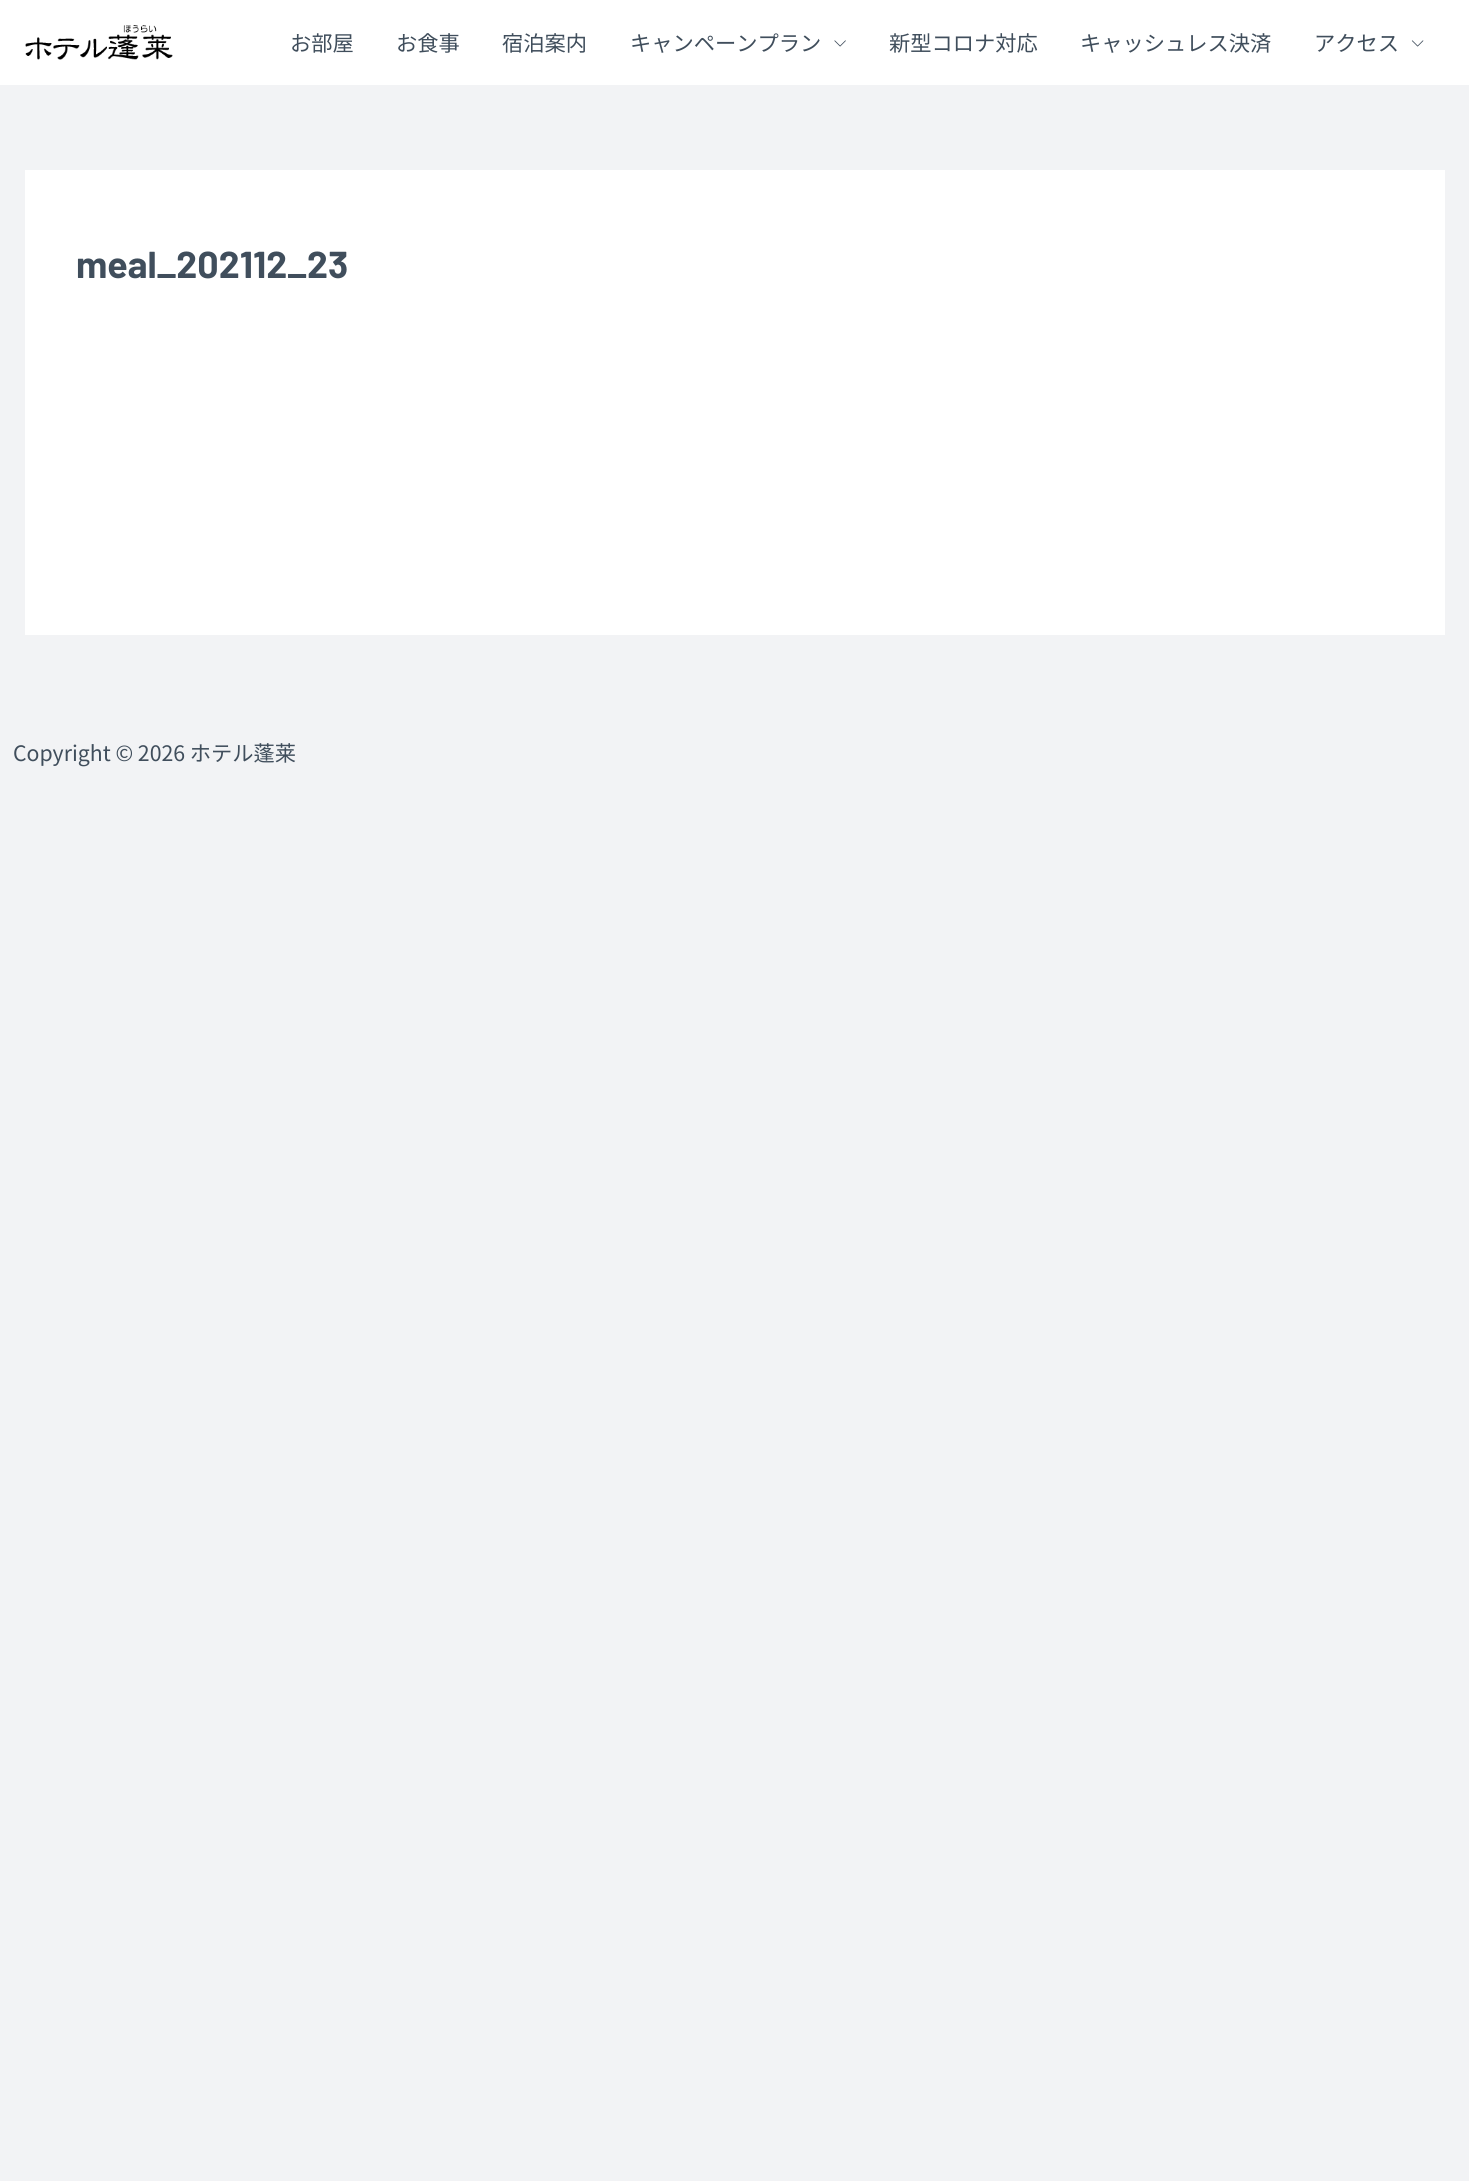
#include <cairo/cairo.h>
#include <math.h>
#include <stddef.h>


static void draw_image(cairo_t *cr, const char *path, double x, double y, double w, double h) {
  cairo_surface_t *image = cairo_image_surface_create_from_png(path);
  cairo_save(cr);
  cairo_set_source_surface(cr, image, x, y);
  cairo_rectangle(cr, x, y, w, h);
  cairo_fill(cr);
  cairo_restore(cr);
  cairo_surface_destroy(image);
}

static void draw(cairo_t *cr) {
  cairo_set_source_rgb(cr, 242 / 255.0, 243 / 255.0, 245 / 255.0);
  cairo_paint(cr);
  cairo_set_source_rgb(cr, 1, 1, 1);
  cairo_rectangle(cr, 0, 0, 1469, 85);
  cairo_fill(cr);
  draw_image(cr, "images/1.png", 25, 25, 148, 35);
  draw_image(cr, "images/2.png", 834, 40, 12, 7);
  draw_image(cr, "images/3.png", 1411, 40, 13, 7);
  cairo_rectangle(cr, 25, 170, 1420, 465);
  cairo_fill(cr);
  cairo_select_font_face(cr, "Noto Sans JP Thin", CAIRO_FONT_SLANT_NORMAL, CAIRO_FONT_WEIGHT_NORMAL);
  cairo_set_font_size(cr, 21.25);
  cairo_set_source_rgb(cr, 64 / 255.0, 78 / 255.0, 92 / 255.0);
  cairo_move_to(cr, 290, 51);
  cairo_show_text(cr, "お部屋");
  cairo_move_to(cr, 396, 51);
  cairo_show_text(cr, "お食事");
  cairo_move_to(cr, 502, 51);
  cairo_show_text(cr, "宿泊案内");
  cairo_move_to(cr, 630, 51);
  cairo_show_text(cr, "キャンペーンプラン");
  cairo_move_to(cr, 889, 51);
  cairo_show_text(cr, "新型コロナ対応");
  cairo_move_to(cr, 1080, 51);
  cairo_show_text(cr, "キャッシュレス決済");
  cairo_move_to(cr, 1314, 51);
  cairo_show_text(cr, "アクセス");
  cairo_select_font_face(cr, "Barlow", CAIRO_FONT_SLANT_NORMAL, CAIRO_FONT_WEIGHT_BOLD);
  cairo_set_font_size(cr, 37.5);
  cairo_move_to(cr, 76, 278);
  cairo_show_text(cr, "meal_202112_23");
  cairo_select_font_face(cr, "Noto Sans JP Thin", CAIRO_FONT_SLANT_NORMAL, CAIRO_FONT_WEIGHT_NORMAL);
  cairo_set_font_size(cr, 21.25);
  cairo_move_to(cr, 13, 761);
  cairo_show_text(cr, "Copyright © 2026 ホテル蓬莱");
}

int main(void) {
  cairo_surface_t *surface = cairo_image_surface_create(CAIRO_FORMAT_RGB24, 1469, 2181);
  cairo_t *cr = cairo_create(surface);
  cairo_font_options_t *options = cairo_font_options_create();
  cairo_font_options_set_hint_metrics(options, CAIRO_HINT_METRICS_OFF);
  cairo_font_options_set_hint_style(options, CAIRO_HINT_STYLE_NONE);
  cairo_set_font_options(cr, options);
  cairo_set_miter_limit(cr, 4);
  draw(cr);
  cairo_surface_write_to_png(surface, "out.png");
  cairo_font_options_destroy(options);
  cairo_destroy(cr);
  cairo_surface_destroy(surface);
  return 0;
}
